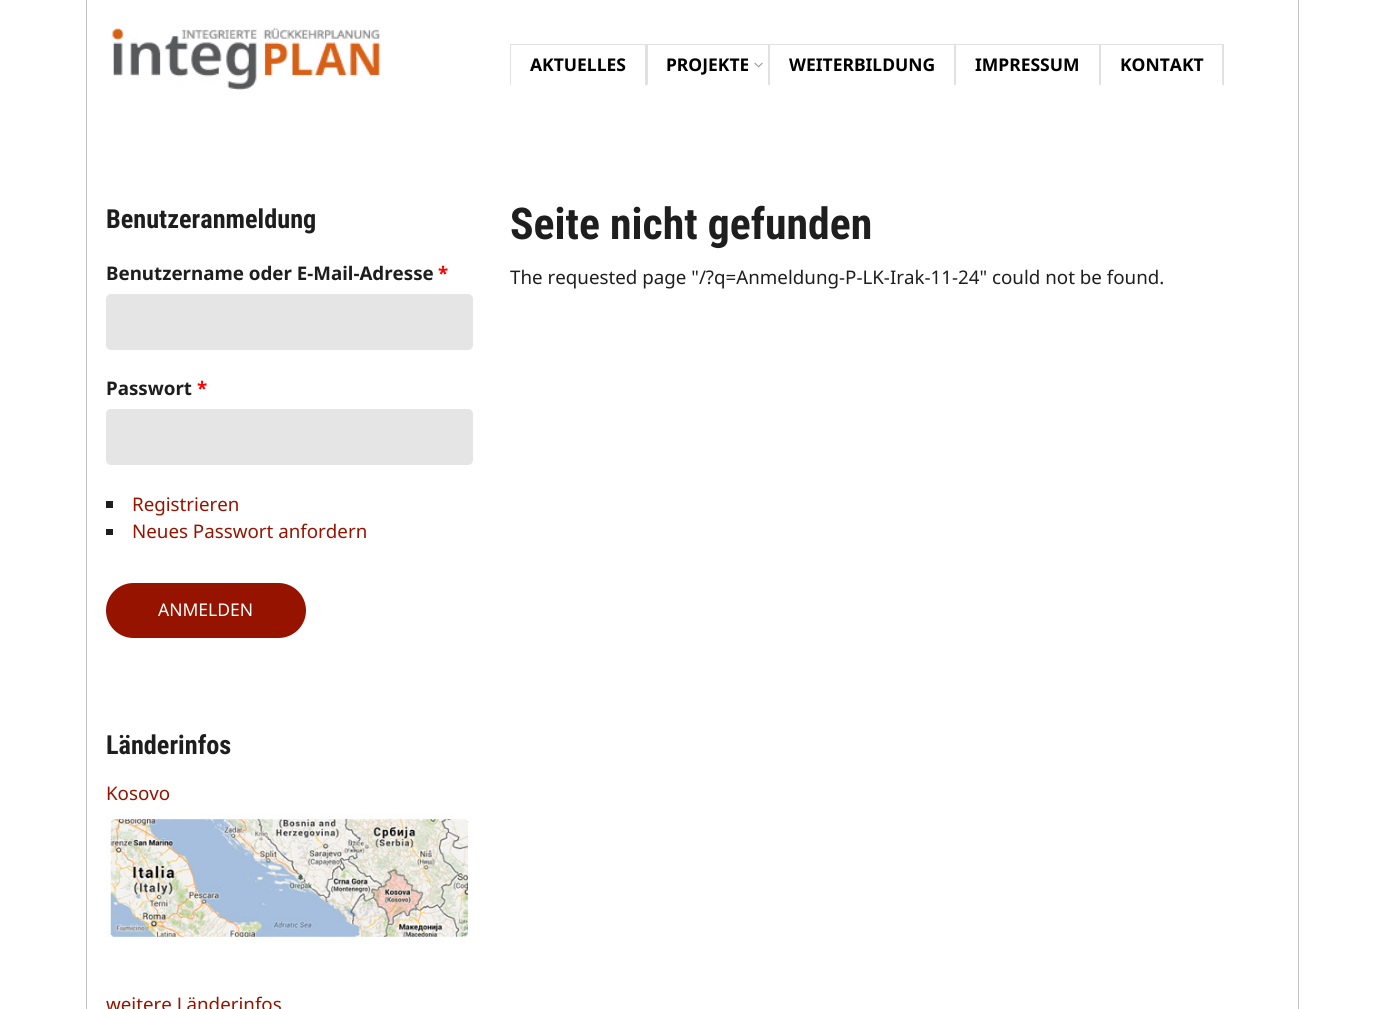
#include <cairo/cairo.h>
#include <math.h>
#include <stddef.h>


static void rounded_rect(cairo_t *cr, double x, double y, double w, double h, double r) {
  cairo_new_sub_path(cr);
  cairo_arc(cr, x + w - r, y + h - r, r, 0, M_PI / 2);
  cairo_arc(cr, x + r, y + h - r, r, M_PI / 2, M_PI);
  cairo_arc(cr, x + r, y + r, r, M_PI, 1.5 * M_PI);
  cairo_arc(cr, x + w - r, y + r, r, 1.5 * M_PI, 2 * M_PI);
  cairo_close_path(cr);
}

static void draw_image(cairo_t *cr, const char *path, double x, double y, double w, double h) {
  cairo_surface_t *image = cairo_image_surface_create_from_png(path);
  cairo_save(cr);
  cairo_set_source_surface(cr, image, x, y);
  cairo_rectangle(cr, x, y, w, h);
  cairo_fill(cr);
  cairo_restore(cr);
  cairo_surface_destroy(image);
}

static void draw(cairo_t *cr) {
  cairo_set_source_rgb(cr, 1, 1, 1);
  cairo_paint(cr);
  cairo_set_source_rgb(cr, 194 / 255.0, 194 / 255.0, 194 / 255.0);
  cairo_rectangle(cr, 1298, 0, 1, 1009);
  cairo_fill(cr);
  cairo_rectangle(cr, 86, 0, 1, 1009);
  cairo_fill(cr);
  draw_image(cr, "images/1.png", 112, 27, 269, 63);
  cairo_set_source_rgb(cr, 225 / 255.0, 225 / 255.0, 225 / 255.0);
  cairo_rectangle(cr, 510, 44, 714, 1);
  cairo_fill(cr);
  cairo_new_path(cr);
  cairo_move_to(cr, 646, 44);
  cairo_line_to(cr, 646, 86);
  cairo_line_to(cr, 645, 84);
  cairo_line_to(cr, 645, 45);
  cairo_close_path(cr);
  cairo_fill(cr);
  cairo_new_path(cr);
  cairo_move_to(cr, 510, 86);
  cairo_line_to(cr, 510, 44);
  cairo_line_to(cr, 511, 45);
  cairo_line_to(cr, 511, 84);
  cairo_close_path(cr);
  cairo_fill(cr);
  cairo_new_path(cr);
  cairo_move_to(cr, 769, 44);
  cairo_line_to(cr, 769, 86);
  cairo_line_to(cr, 768, 84);
  cairo_line_to(cr, 768, 45);
  cairo_close_path(cr);
  cairo_fill(cr);
  cairo_new_path(cr);
  cairo_move_to(cr, 646, 86);
  cairo_line_to(cr, 646, 44);
  cairo_line_to(cr, 648, 45);
  cairo_line_to(cr, 648, 84);
  cairo_close_path(cr);
  cairo_fill(cr);
  draw_image(cr, "images/2.png", 754, 62, 9, 6);
  cairo_new_path(cr);
  cairo_move_to(cr, 955, 44);
  cairo_line_to(cr, 955, 86);
  cairo_line_to(cr, 954, 84);
  cairo_line_to(cr, 954, 45);
  cairo_close_path(cr);
  cairo_fill(cr);
  cairo_new_path(cr);
  cairo_move_to(cr, 769, 86);
  cairo_line_to(cr, 769, 44);
  cairo_line_to(cr, 770, 45);
  cairo_line_to(cr, 770, 84);
  cairo_close_path(cr);
  cairo_fill(cr);
  cairo_new_path(cr);
  cairo_move_to(cr, 1100, 44);
  cairo_line_to(cr, 1100, 86);
  cairo_line_to(cr, 1099, 84);
  cairo_line_to(cr, 1099, 45);
  cairo_close_path(cr);
  cairo_fill(cr);
  cairo_new_path(cr);
  cairo_move_to(cr, 955, 86);
  cairo_line_to(cr, 955, 44);
  cairo_line_to(cr, 956, 45);
  cairo_line_to(cr, 956, 84);
  cairo_close_path(cr);
  cairo_fill(cr);
  cairo_new_path(cr);
  cairo_move_to(cr, 1224, 44);
  cairo_line_to(cr, 1224, 86);
  cairo_line_to(cr, 1222, 84);
  cairo_line_to(cr, 1222, 45);
  cairo_close_path(cr);
  cairo_fill(cr);
  cairo_new_path(cr);
  cairo_move_to(cr, 1100, 86);
  cairo_line_to(cr, 1100, 44);
  cairo_line_to(cr, 1101, 45);
  cairo_line_to(cr, 1101, 84);
  cairo_close_path(cr);
  cairo_fill(cr);
  cairo_set_source_rgb(cr, 229 / 255.0, 229 / 255.0, 229 / 255.0);
  rounded_rect(cr, 106, 294, 367, 56, 5);
  cairo_fill(cr);
  rounded_rect(cr, 106, 409, 367, 56, 5);
  cairo_fill(cr);
  cairo_set_source_rgb(cr, 30 / 255.0, 30 / 255.0, 30 / 255.0);
  cairo_rectangle(cr, 106, 501, 7, 7);
  cairo_fill(cr);
  cairo_rectangle(cr, 106, 529, 7, 6);
  cairo_fill(cr);
  cairo_set_source_rgb(cr, 150 / 255.0, 19 / 255.0, 0);
  rounded_rect(cr, 106, 583, 200, 55, 27.5);
  cairo_fill(cr);
  draw_image(cr, "images/3.png", 106, 814, 363, 123);
  cairo_select_font_face(cr, "Noto Sans", CAIRO_FONT_SLANT_NORMAL, CAIRO_FONT_WEIGHT_BOLD);
  cairo_set_font_size(cr, 17.5);
  cairo_set_source_rgb(cr, 0, 0, 0);
  cairo_move_to(cr, 530, 71);
  cairo_show_text(cr, "AKTUELLES");
  cairo_move_to(cr, 666, 71);
  cairo_show_text(cr, "PROJEKTE");
  cairo_move_to(cr, 789, 71);
  cairo_show_text(cr, "WEITERBILDUNG");
  cairo_move_to(cr, 975, 71);
  cairo_show_text(cr, "IMPRESSUM");
  cairo_move_to(cr, 1120, 71);
  cairo_show_text(cr, "KONTAKT");
  cairo_select_font_face(cr, "Roboto Condensed", CAIRO_FONT_SLANT_NORMAL, CAIRO_FONT_WEIGHT_BOLD);
  cairo_set_font_size(cr, 26.25);
  cairo_set_source_rgb(cr, 30 / 255.0, 30 / 255.0, 30 / 255.0);
  cairo_move_to(cr, 106, 228);
  cairo_show_text(cr, "Benutzeranmeldung");
  cairo_select_font_face(cr, "Noto Sans", CAIRO_FONT_SLANT_NORMAL, CAIRO_FONT_WEIGHT_BOLD);
  cairo_set_font_size(cr, 18.75);
  cairo_move_to(cr, 106, 280);
  cairo_show_text(cr, "Benutzername oder E-Mail-Adresse");
  cairo_set_source_rgb(cr, 1, 0, 0);
  cairo_move_to(cr, 438, 280);
  cairo_show_text(cr, "*");
  cairo_set_source_rgb(cr, 30 / 255.0, 30 / 255.0, 30 / 255.0);
  cairo_move_to(cr, 106, 395);
  cairo_show_text(cr, "Passwort");
  cairo_set_source_rgb(cr, 1, 0, 0);
  cairo_move_to(cr, 197, 395);
  cairo_show_text(cr, "*");
  cairo_select_font_face(cr, "Noto Sans", CAIRO_FONT_SLANT_NORMAL, CAIRO_FONT_WEIGHT_NORMAL);
  cairo_set_source_rgb(cr, 150 / 255.0, 19 / 255.0, 0);
  cairo_move_to(cr, 132, 511);
  cairo_show_text(cr, "Registrieren");
  cairo_move_to(cr, 132, 538);
  cairo_show_text(cr, "Neues Passwort anfordern");
  cairo_set_font_size(cr, 17.5);
  cairo_set_source_rgb(cr, 1, 1, 1);
  cairo_move_to(cr, 158, 616);
  cairo_show_text(cr, "ANMELDEN");
  cairo_select_font_face(cr, "Roboto Condensed", CAIRO_FONT_SLANT_NORMAL, CAIRO_FONT_WEIGHT_BOLD);
  cairo_set_font_size(cr, 26.25);
  cairo_set_source_rgb(cr, 30 / 255.0, 30 / 255.0, 30 / 255.0);
  cairo_move_to(cr, 106, 754);
  cairo_show_text(cr, "Länderinfos");
  cairo_select_font_face(cr, "Noto Sans", CAIRO_FONT_SLANT_NORMAL, CAIRO_FONT_WEIGHT_NORMAL);
  cairo_set_font_size(cr, 18.75);
  cairo_set_source_rgb(cr, 150 / 255.0, 19 / 255.0, 0);
  cairo_move_to(cr, 106, 800);
  cairo_show_text(cr, "Kosovo");
  cairo_move_to(cr, 106, 1011);
  cairo_show_text(cr, "weitere Länderinfos");
  cairo_select_font_face(cr, "Roboto Condensed", CAIRO_FONT_SLANT_NORMAL, CAIRO_FONT_WEIGHT_BOLD);
  cairo_set_font_size(cr, 43.75);
  cairo_set_source_rgb(cr, 30 / 255.0, 30 / 255.0, 30 / 255.0);
  cairo_move_to(cr, 510, 239);
  cairo_show_text(cr, "Seite nicht gefunden");
  cairo_select_font_face(cr, "Noto Sans", CAIRO_FONT_SLANT_NORMAL, CAIRO_FONT_WEIGHT_NORMAL);
  cairo_set_font_size(cr, 18.75);
  cairo_move_to(cr, 510, 284);
  cairo_show_text(cr, "The requested page \"/?q=Anmeldung-P-LK-Irak-11-24\" could not be found.");
}

int main(void) {
  cairo_surface_t *surface = cairo_image_surface_create(CAIRO_FORMAT_RGB24, 1383, 1009);
  cairo_t *cr = cairo_create(surface);
  cairo_font_options_t *options = cairo_font_options_create();
  cairo_font_options_set_hint_metrics(options, CAIRO_HINT_METRICS_OFF);
  cairo_font_options_set_hint_style(options, CAIRO_HINT_STYLE_NONE);
  cairo_set_font_options(cr, options);
  cairo_set_miter_limit(cr, 4);
  draw(cr);
  cairo_surface_write_to_png(surface, "out.png");
  cairo_font_options_destroy(options);
  cairo_destroy(cr);
  cairo_surface_destroy(surface);
  return 0;
}
